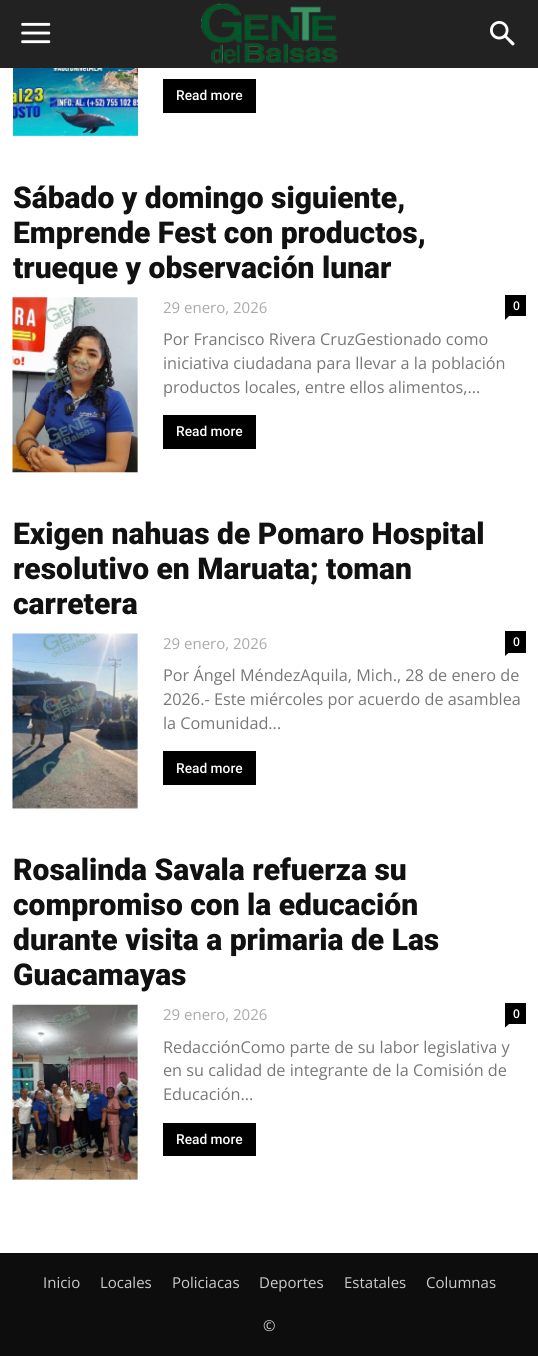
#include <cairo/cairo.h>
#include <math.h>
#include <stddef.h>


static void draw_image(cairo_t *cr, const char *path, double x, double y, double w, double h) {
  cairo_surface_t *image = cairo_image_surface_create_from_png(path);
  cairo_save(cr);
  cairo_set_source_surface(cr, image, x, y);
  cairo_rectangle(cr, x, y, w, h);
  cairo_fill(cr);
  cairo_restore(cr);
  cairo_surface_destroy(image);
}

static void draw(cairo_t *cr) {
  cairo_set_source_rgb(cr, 1, 1, 1);
  cairo_paint(cr);
  cairo_set_source_rgb(cr, 34 / 255.0, 34 / 255.0, 34 / 255.0);
  cairo_rectangle(cr, 0, 0, 538, 68);
  cairo_fill(cr);
  draw_image(cr, "images/1.png", 21, 22, 30, 22);
  draw_image(cr, "images/2.png", 201, 3, 137, 61);
  draw_image(cr, "images/3.png", 490, 21, 25, 25);
  draw_image(cr, "images/4.png", 13, 68, 125, 68);
  cairo_set_source_rgb(cr, 0, 0, 0);
  cairo_rectangle(cr, 163, 79, 93, 34);
  cairo_fill(cr);
  draw_image(cr, "images/5.png", 12, 297, 126, 176);
  cairo_rectangle(cr, 505, 295, 21, 21);
  cairo_fill(cr);
  cairo_new_path(cr);
  cairo_move_to(cr, 505, 316);
  cairo_line_to(cr, 509, 316);
  cairo_line_to(cr, 505, 320);
  cairo_close_path(cr);
  cairo_fill(cr);
  cairo_rectangle(cr, 163, 415, 93, 34);
  cairo_fill(cr);
  draw_image(cr, "images/6.png", 12, 633, 126, 176);
  cairo_rectangle(cr, 505, 631, 21, 22);
  cairo_fill(cr);
  cairo_new_path(cr);
  cairo_move_to(cr, 505, 652.5);
  cairo_line_to(cr, 509, 652.5);
  cairo_line_to(cr, 505, 656);
  cairo_close_path(cr);
  cairo_fill(cr);
  cairo_rectangle(cr, 163, 751, 93, 34);
  cairo_fill(cr);
  draw_image(cr, "images/7.png", 12, 1004, 126, 176);
  cairo_rectangle(cr, 505, 1003, 21, 21);
  cairo_fill(cr);
  cairo_new_path(cr);
  cairo_move_to(cr, 505, 1024);
  cairo_line_to(cr, 509, 1024);
  cairo_line_to(cr, 505, 1027.5);
  cairo_close_path(cr);
  cairo_fill(cr);
  cairo_rectangle(cr, 163, 1123, 93, 33);
  cairo_fill(cr);
  cairo_set_source_rgb(cr, 13 / 255.0, 13 / 255.0, 13 / 255.0);
  cairo_rectangle(cr, 0, 1253, 538, 103);
  cairo_fill(cr);
  cairo_select_font_face(cr, "Roboto Medium", CAIRO_FONT_SLANT_NORMAL, CAIRO_FONT_WEIGHT_NORMAL);
  cairo_set_font_size(cr, 13.75);
  cairo_set_source_rgb(cr, 1, 1, 1);
  cairo_move_to(cr, 176, 100);
  cairo_show_text(cr, "Read more");
  cairo_select_font_face(cr, "Roboto Black", CAIRO_FONT_SLANT_NORMAL, CAIRO_FONT_WEIGHT_NORMAL);
  cairo_set_font_size(cr, 30);
  cairo_set_source_rgb(cr, 17 / 255.0, 17 / 255.0, 17 / 255.0);
  cairo_move_to(cr, 13, 208);
  cairo_show_text(cr, "Sábado y domingo siguiente,");
  cairo_move_to(cr, 13, 243);
  cairo_show_text(cr, "Emprende Fest con productos,");
  cairo_move_to(cr, 13, 278);
  cairo_show_text(cr, "trueque y observación lunar");
  cairo_select_font_face(cr, "Open Sans", CAIRO_FONT_SLANT_NORMAL, CAIRO_FONT_WEIGHT_NORMAL);
  cairo_set_font_size(cr, 15);
  cairo_set_source_rgb(cr, 170 / 255.0, 170 / 255.0, 170 / 255.0);
  cairo_move_to(cr, 163, 313);
  cairo_show_text(cr, "29 enero, 2026");
  cairo_select_font_face(cr, "Open Sans SemiBold", CAIRO_FONT_SLANT_NORMAL, CAIRO_FONT_WEIGHT_NORMAL);
  cairo_set_font_size(cr, 12);
  cairo_set_source_rgb(cr, 1, 1, 1);
  cairo_move_to(cr, 513, 310);
  cairo_show_text(cr, "0");
  cairo_select_font_face(cr, "Open Sans", CAIRO_FONT_SLANT_NORMAL, CAIRO_FONT_WEIGHT_NORMAL);
  cairo_set_font_size(cr, 16.25);
  cairo_set_source_rgb(cr, 119 / 255.0, 119 / 255.0, 119 / 255.0);
  cairo_move_to(cr, 163, 345);
  cairo_show_text(cr, "Por Francisco Rivera CruzGestionado como");
  cairo_move_to(cr, 163, 369);
  cairo_show_text(cr, "iniciativa ciudadana para llevar a la población");
  cairo_move_to(cr, 163, 393);
  cairo_show_text(cr, "productos locales, entre ellos alimentos,...");
  cairo_select_font_face(cr, "Roboto Medium", CAIRO_FONT_SLANT_NORMAL, CAIRO_FONT_WEIGHT_NORMAL);
  cairo_set_font_size(cr, 13.75);
  cairo_set_source_rgb(cr, 1, 1, 1);
  cairo_move_to(cr, 176, 436);
  cairo_show_text(cr, "Read more");
  cairo_select_font_face(cr, "Roboto Black", CAIRO_FONT_SLANT_NORMAL, CAIRO_FONT_WEIGHT_NORMAL);
  cairo_set_font_size(cr, 30);
  cairo_set_source_rgb(cr, 17 / 255.0, 17 / 255.0, 17 / 255.0);
  cairo_move_to(cr, 13, 544);
  cairo_show_text(cr, "Exigen nahuas de Pomaro Hospital");
  cairo_move_to(cr, 13, 579);
  cairo_show_text(cr, "resolutivo en Maruata; toman");
  cairo_move_to(cr, 13, 614);
  cairo_show_text(cr, "carretera");
  cairo_select_font_face(cr, "Open Sans", CAIRO_FONT_SLANT_NORMAL, CAIRO_FONT_WEIGHT_NORMAL);
  cairo_set_font_size(cr, 15);
  cairo_set_source_rgb(cr, 170 / 255.0, 170 / 255.0, 170 / 255.0);
  cairo_move_to(cr, 163, 649);
  cairo_show_text(cr, "29 enero, 2026");
  cairo_select_font_face(cr, "Open Sans SemiBold", CAIRO_FONT_SLANT_NORMAL, CAIRO_FONT_WEIGHT_NORMAL);
  cairo_set_font_size(cr, 12);
  cairo_set_source_rgb(cr, 1, 1, 1);
  cairo_move_to(cr, 513, 646);
  cairo_show_text(cr, "0");
  cairo_select_font_face(cr, "Open Sans", CAIRO_FONT_SLANT_NORMAL, CAIRO_FONT_WEIGHT_NORMAL);
  cairo_set_font_size(cr, 16.25);
  cairo_set_source_rgb(cr, 119 / 255.0, 119 / 255.0, 119 / 255.0);
  cairo_move_to(cr, 163, 681);
  cairo_show_text(cr, "Por Ángel MéndezAquila, Mich., 28 de enero de");
  cairo_move_to(cr, 163, 705);
  cairo_show_text(cr, "2026.- Este miércoles por acuerdo de asamblea");
  cairo_move_to(cr, 163, 729);
  cairo_show_text(cr, "la Comunidad...");
  cairo_select_font_face(cr, "Roboto Medium", CAIRO_FONT_SLANT_NORMAL, CAIRO_FONT_WEIGHT_NORMAL);
  cairo_set_font_size(cr, 13.75);
  cairo_set_source_rgb(cr, 1, 1, 1);
  cairo_move_to(cr, 176, 773);
  cairo_show_text(cr, "Read more");
  cairo_select_font_face(cr, "Roboto Black", CAIRO_FONT_SLANT_NORMAL, CAIRO_FONT_WEIGHT_NORMAL);
  cairo_set_font_size(cr, 30);
  cairo_set_source_rgb(cr, 17 / 255.0, 17 / 255.0, 17 / 255.0);
  cairo_move_to(cr, 13, 880);
  cairo_show_text(cr, "Rosalinda Savala refuerza su");
  cairo_move_to(cr, 13, 915);
  cairo_show_text(cr, "compromiso con la educación");
  cairo_move_to(cr, 13, 950);
  cairo_show_text(cr, "durante visita a primaria de Las");
  cairo_move_to(cr, 13, 985);
  cairo_show_text(cr, "Guacamayas");
  cairo_select_font_face(cr, "Open Sans", CAIRO_FONT_SLANT_NORMAL, CAIRO_FONT_WEIGHT_NORMAL);
  cairo_set_font_size(cr, 15);
  cairo_set_source_rgb(cr, 170 / 255.0, 170 / 255.0, 170 / 255.0);
  cairo_move_to(cr, 163, 1020);
  cairo_show_text(cr, "29 enero, 2026");
  cairo_select_font_face(cr, "Open Sans SemiBold", CAIRO_FONT_SLANT_NORMAL, CAIRO_FONT_WEIGHT_NORMAL);
  cairo_set_font_size(cr, 12);
  cairo_set_source_rgb(cr, 1, 1, 1);
  cairo_move_to(cr, 513, 1018);
  cairo_show_text(cr, "0");
  cairo_select_font_face(cr, "Open Sans", CAIRO_FONT_SLANT_NORMAL, CAIRO_FONT_WEIGHT_NORMAL);
  cairo_set_font_size(cr, 16.25);
  cairo_set_source_rgb(cr, 119 / 255.0, 119 / 255.0, 119 / 255.0);
  cairo_move_to(cr, 163, 1053);
  cairo_show_text(cr, "RedacciónComo parte de su labor legislativa y");
  cairo_move_to(cr, 163, 1076);
  cairo_show_text(cr, "en su calidad de integrante de la Comisión de");
  cairo_move_to(cr, 163, 1100);
  cairo_show_text(cr, "Educación...");
  cairo_select_font_face(cr, "Roboto Medium", CAIRO_FONT_SLANT_NORMAL, CAIRO_FONT_WEIGHT_NORMAL);
  cairo_set_font_size(cr, 13.75);
  cairo_set_source_rgb(cr, 1, 1, 1);
  cairo_move_to(cr, 176, 1144);
  cairo_show_text(cr, "Read more");
  cairo_select_font_face(cr, "Open Sans", CAIRO_FONT_SLANT_NORMAL, CAIRO_FONT_WEIGHT_NORMAL);
  cairo_set_font_size(cr, 15);
  cairo_set_source_rgb(cr, 204 / 255.0, 204 / 255.0, 204 / 255.0);
  cairo_move_to(cr, 43, 1288);
  cairo_show_text(cr, "Inicio");
  cairo_move_to(cr, 100, 1288);
  cairo_show_text(cr, "Locales");
  cairo_move_to(cr, 172, 1288);
  cairo_show_text(cr, "Policiacas");
  cairo_move_to(cr, 259, 1288);
  cairo_show_text(cr, "Deportes");
  cairo_move_to(cr, 344, 1288);
  cairo_show_text(cr, "Estatales");
  cairo_move_to(cr, 426, 1288);
  cairo_show_text(cr, "Columnas");
  cairo_move_to(cr, 263, 1331);
  cairo_show_text(cr, "©");
}

int main(void) {
  cairo_surface_t *surface = cairo_image_surface_create(CAIRO_FORMAT_RGB24, 538, 1356);
  cairo_t *cr = cairo_create(surface);
  cairo_font_options_t *options = cairo_font_options_create();
  cairo_font_options_set_hint_metrics(options, CAIRO_HINT_METRICS_OFF);
  cairo_font_options_set_hint_style(options, CAIRO_HINT_STYLE_NONE);
  cairo_set_font_options(cr, options);
  cairo_set_miter_limit(cr, 4);
  draw(cr);
  cairo_surface_write_to_png(surface, "out.png");
  cairo_font_options_destroy(options);
  cairo_destroy(cr);
  cairo_surface_destroy(surface);
  return 0;
}
